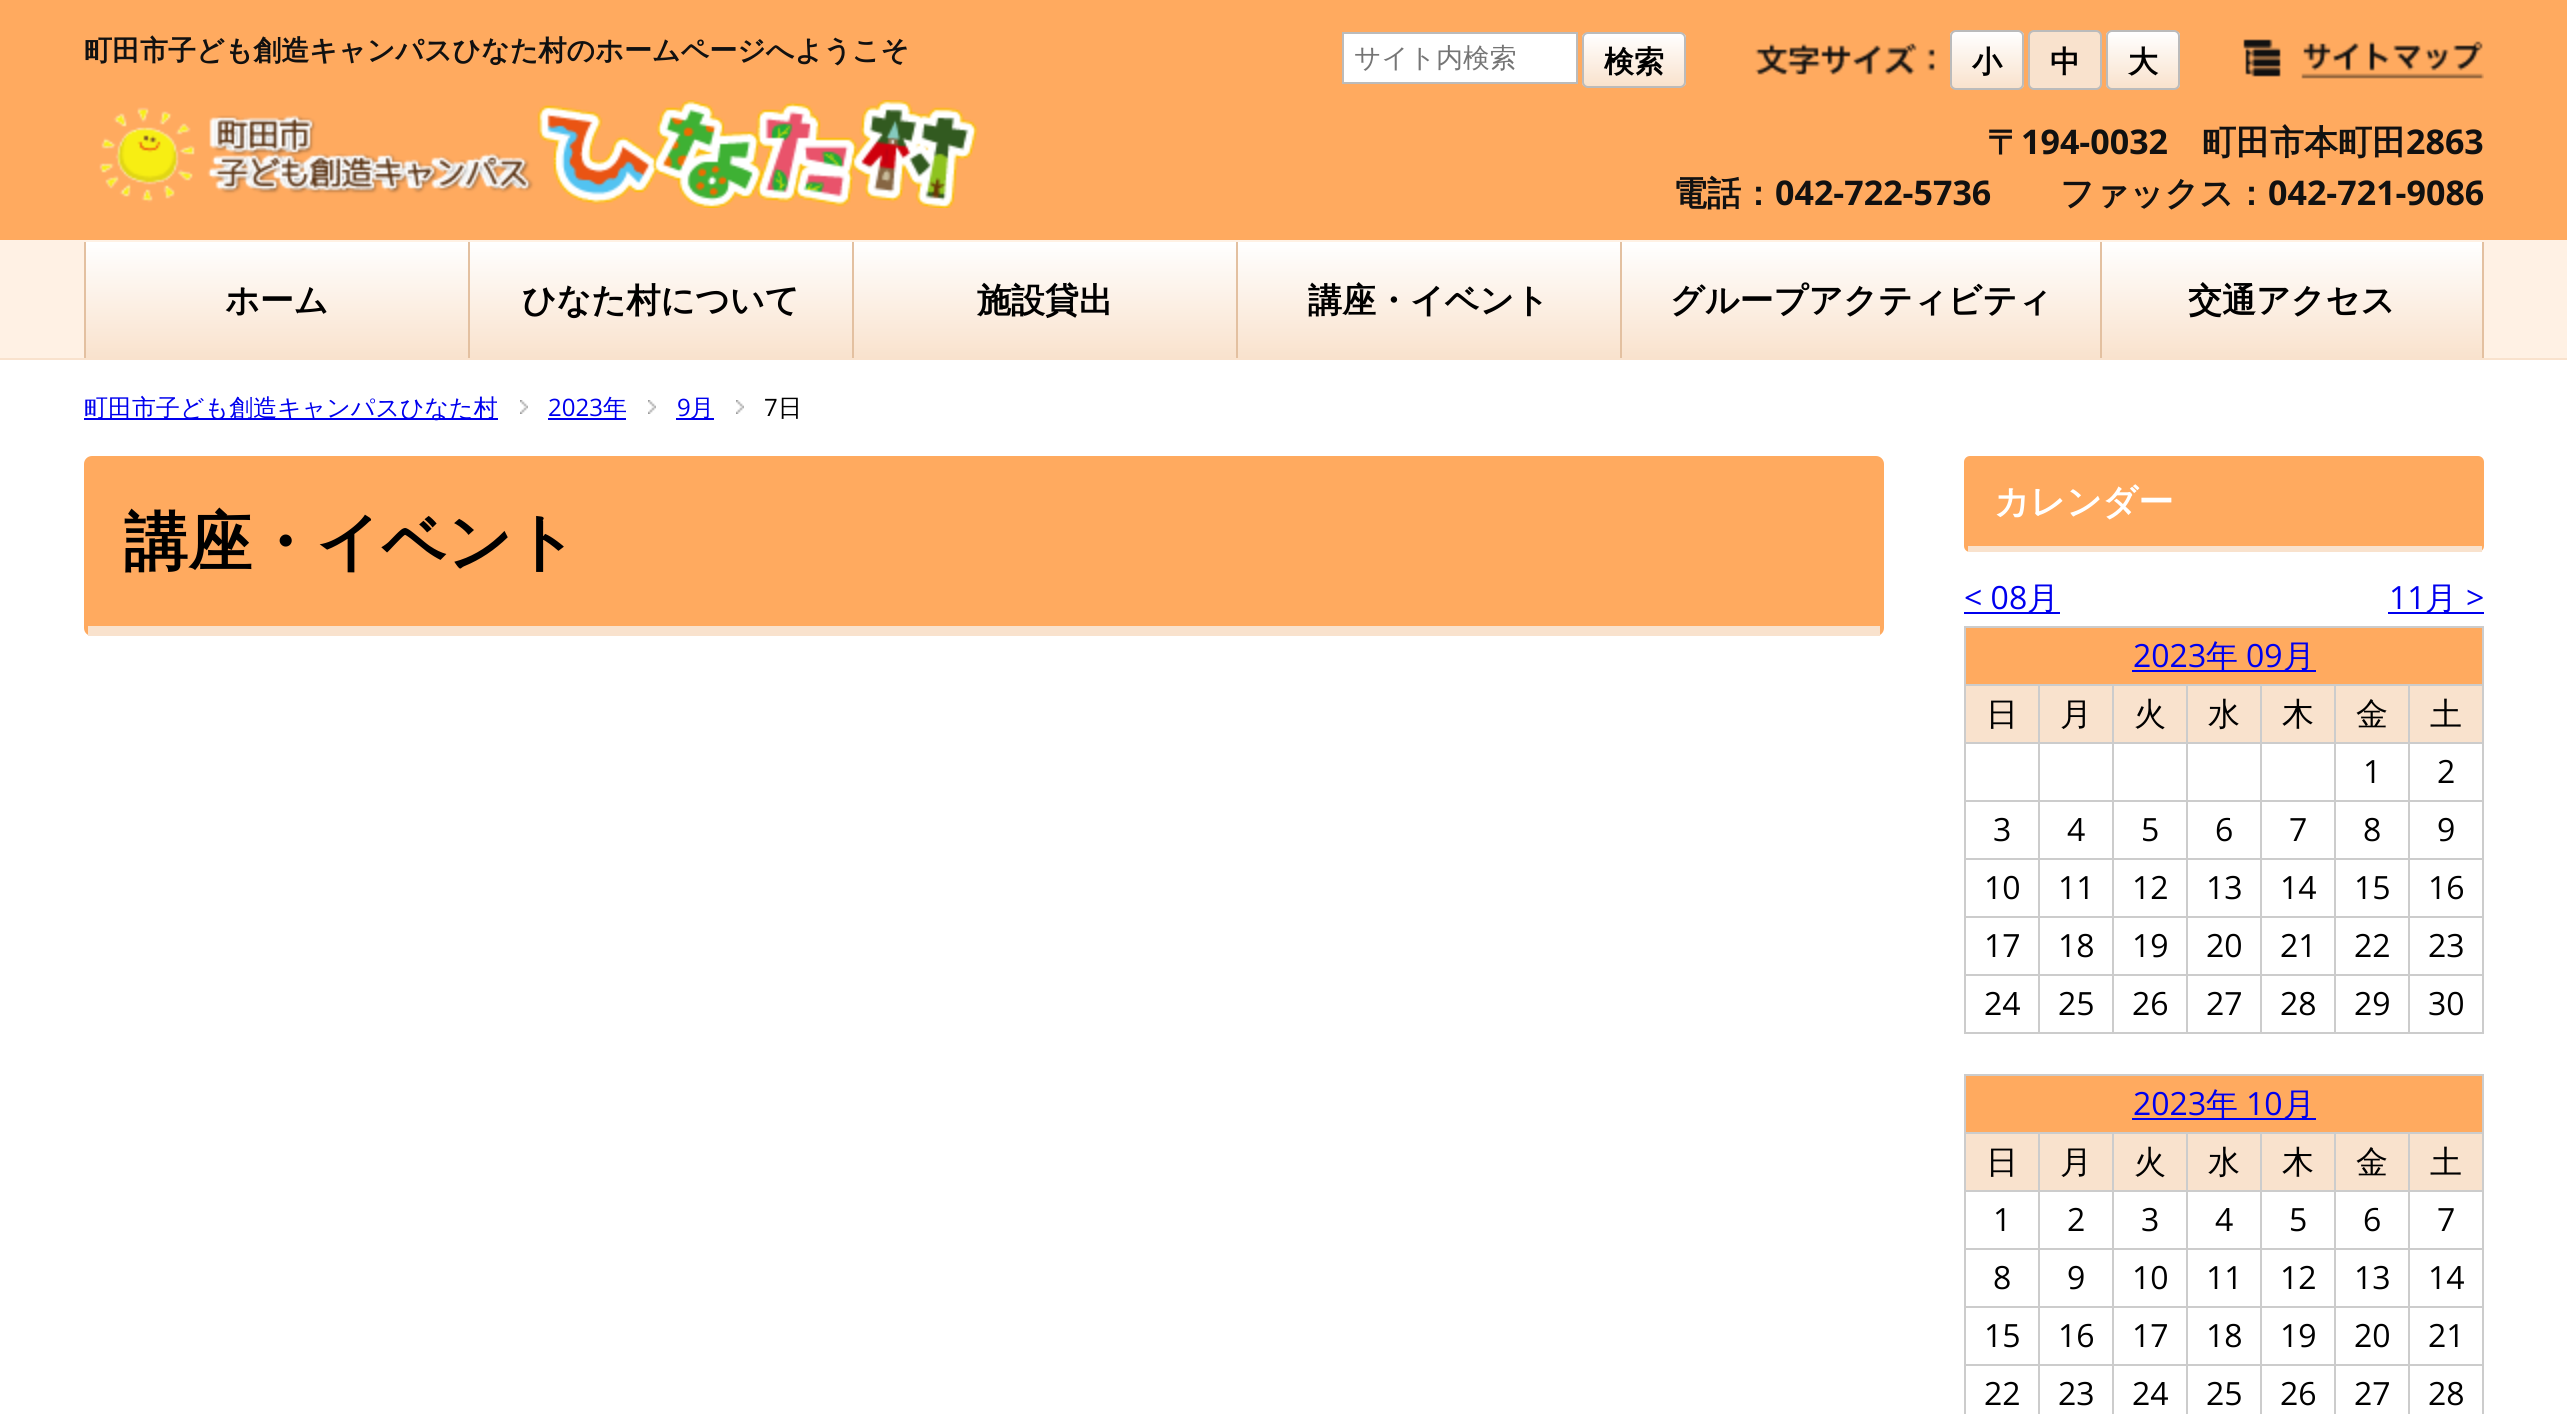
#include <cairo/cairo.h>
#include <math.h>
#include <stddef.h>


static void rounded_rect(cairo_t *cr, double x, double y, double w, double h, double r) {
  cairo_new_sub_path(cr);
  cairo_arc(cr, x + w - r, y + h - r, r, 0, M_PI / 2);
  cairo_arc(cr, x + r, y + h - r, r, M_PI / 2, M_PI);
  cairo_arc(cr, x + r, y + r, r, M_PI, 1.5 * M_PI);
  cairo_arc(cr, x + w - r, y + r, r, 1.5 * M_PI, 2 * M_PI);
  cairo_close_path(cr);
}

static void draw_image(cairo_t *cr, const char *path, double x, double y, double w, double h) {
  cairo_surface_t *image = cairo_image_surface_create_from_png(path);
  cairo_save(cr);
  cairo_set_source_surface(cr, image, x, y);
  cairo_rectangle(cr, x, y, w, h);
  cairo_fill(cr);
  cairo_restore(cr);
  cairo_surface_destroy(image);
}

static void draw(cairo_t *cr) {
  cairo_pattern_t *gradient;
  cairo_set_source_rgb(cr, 1, 1, 1);
  cairo_paint(cr);
  cairo_set_source_rgb(cr, 1, 170 / 255.0, 95 / 255.0);
  cairo_rectangle(cr, 0, 0, 2567, 240);
  cairo_fill(cr);
  draw_image(cr, "images/1.png", 99, 100, 880, 108);
  cairo_set_source_rgb(cr, 1, 1, 1);
  cairo_rectangle(cr, 1343, 33, 234, 50);
  cairo_fill_preserve(cr);
  cairo_set_source_rgb(cr, 187 / 255.0, 187 / 255.0, 187 / 255.0);
  cairo_stroke(cr);
  cairo_save(cr);
  rounded_rect(cr, 1582, 32, 104, 56, 6);
  cairo_clip(cr);
  gradient = cairo_pattern_create_linear(1634, 34, 1634, 86);
  cairo_pattern_add_color_stop_rgba(gradient, 0, 1, 1, 1, 1);
  cairo_pattern_add_color_stop_rgba(gradient, 1, 249 / 255.0, 226 / 255.0, 205 / 255.0, 1);
  cairo_set_source(cr, gradient);
  cairo_pattern_destroy(gradient);
  cairo_rectangle(cr, 1582, 34, 104, 52);
  cairo_fill(cr);
  cairo_restore(cr);
  rounded_rect(cr, 1583, 33, 102, 54, 5);
  cairo_stroke(cr);
  draw_image(cr, "images/2.png", 1755, 43, 180, 32);
  cairo_save(cr);
  rounded_rect(cr, 1950, 30, 74, 60, 6);
  cairo_clip(cr);
  gradient = cairo_pattern_create_linear(1987, 32, 1987, 88);
  cairo_pattern_add_color_stop_rgba(gradient, 0, 1, 1, 1, 1);
  cairo_pattern_add_color_stop_rgba(gradient, 1, 249 / 255.0, 226 / 255.0, 205 / 255.0, 1);
  cairo_set_source(cr, gradient);
  cairo_pattern_destroy(gradient);
  cairo_rectangle(cr, 1950, 32, 74, 56);
  cairo_fill(cr);
  cairo_restore(cr);
  rounded_rect(cr, 1951, 31, 72, 58, 5);
  cairo_stroke(cr);
  cairo_set_source_rgb(cr, 249 / 255.0, 226 / 255.0, 205 / 255.0);
  rounded_rect(cr, 2029, 31, 72, 58, 5);
  cairo_fill_preserve(cr);
  cairo_set_source_rgb(cr, 187 / 255.0, 187 / 255.0, 187 / 255.0);
  cairo_stroke(cr);
  cairo_save(cr);
  rounded_rect(cr, 2106, 30, 74, 60, 6);
  cairo_clip(cr);
  gradient = cairo_pattern_create_linear(2143, 32, 2143, 88);
  cairo_pattern_add_color_stop_rgba(gradient, 0, 1, 1, 1, 1);
  cairo_pattern_add_color_stop_rgba(gradient, 1, 249 / 255.0, 226 / 255.0, 205 / 255.0, 1);
  cairo_set_source(cr, gradient);
  cairo_pattern_destroy(gradient);
  cairo_rectangle(cr, 2106, 32, 74, 56);
  cairo_fill(cr);
  cairo_restore(cr);
  rounded_rect(cr, 2107, 31, 72, 58, 5);
  cairo_stroke(cr);
  draw_image(cr, "images/3.png", 2243, 39, 241, 40);
  cairo_set_source_rgb(cr, 1, 241 / 255.0, 228 / 255.0);
  cairo_rectangle(cr, 0, 240, 2567, 118);
  cairo_fill(cr);
  cairo_set_source_rgb(cr, 249 / 255.0, 226 / 255.0, 205 / 255.0);
  cairo_rectangle(cr, 0, 358, 2567, 2);
  cairo_fill(cr);
  gradient = cairo_pattern_create_linear(277, 242, 277, 358);
  cairo_pattern_add_color_stop_rgba(gradient, 0, 1, 1, 1, 1);
  cairo_pattern_add_color_stop_rgba(gradient, 1, 249 / 255.0, 226 / 255.0, 205 / 255.0, 1);
  cairo_set_source(cr, gradient);
  cairo_pattern_destroy(gradient);
  cairo_rectangle(cr, 86, 242, 382, 116);
  cairo_fill(cr);
  cairo_set_source_rgb(cr, 227 / 255.0, 192 / 255.0, 160 / 255.0);
  cairo_rectangle(cr, 84, 242, 2, 116);
  cairo_fill(cr);
  gradient = cairo_pattern_create_linear(661, 242, 661, 358);
  cairo_pattern_add_color_stop_rgba(gradient, 0, 1, 1, 1, 1);
  cairo_pattern_add_color_stop_rgba(gradient, 1, 249 / 255.0, 226 / 255.0, 205 / 255.0, 1);
  cairo_set_source(cr, gradient);
  cairo_pattern_destroy(gradient);
  cairo_rectangle(cr, 470, 242, 382, 116);
  cairo_fill(cr);
  cairo_set_source_rgb(cr, 227 / 255.0, 192 / 255.0, 160 / 255.0);
  cairo_rectangle(cr, 468, 242, 2, 116);
  cairo_fill(cr);
  gradient = cairo_pattern_create_linear(1045, 242, 1045, 358);
  cairo_pattern_add_color_stop_rgba(gradient, 0, 1, 1, 1, 1);
  cairo_pattern_add_color_stop_rgba(gradient, 1, 249 / 255.0, 226 / 255.0, 205 / 255.0, 1);
  cairo_set_source(cr, gradient);
  cairo_pattern_destroy(gradient);
  cairo_rectangle(cr, 854, 242, 382, 116);
  cairo_fill(cr);
  cairo_set_source_rgb(cr, 227 / 255.0, 192 / 255.0, 160 / 255.0);
  cairo_rectangle(cr, 852, 242, 2, 116);
  cairo_fill(cr);
  gradient = cairo_pattern_create_linear(1429, 242, 1429, 358);
  cairo_pattern_add_color_stop_rgba(gradient, 0, 1, 1, 1, 1);
  cairo_pattern_add_color_stop_rgba(gradient, 1, 249 / 255.0, 226 / 255.0, 205 / 255.0, 1);
  cairo_set_source(cr, gradient);
  cairo_pattern_destroy(gradient);
  cairo_rectangle(cr, 1238, 242, 382, 116);
  cairo_fill(cr);
  cairo_set_source_rgb(cr, 227 / 255.0, 192 / 255.0, 160 / 255.0);
  cairo_rectangle(cr, 1236, 242, 2, 116);
  cairo_fill(cr);
  gradient = cairo_pattern_create_linear(1861, 242, 1861, 358);
  cairo_pattern_add_color_stop_rgba(gradient, 0, 1, 1, 1, 1);
  cairo_pattern_add_color_stop_rgba(gradient, 1, 249 / 255.0, 226 / 255.0, 205 / 255.0, 1);
  cairo_set_source(cr, gradient);
  cairo_pattern_destroy(gradient);
  cairo_rectangle(cr, 1622, 242, 478, 116);
  cairo_fill(cr);
  cairo_set_source_rgb(cr, 227 / 255.0, 192 / 255.0, 160 / 255.0);
  cairo_rectangle(cr, 1620, 242, 2, 116);
  cairo_fill(cr);
  gradient = cairo_pattern_create_linear(2292, 242, 2292, 358);
  cairo_pattern_add_color_stop_rgba(gradient, 0, 1, 1, 1, 1);
  cairo_pattern_add_color_stop_rgba(gradient, 1, 249 / 255.0, 226 / 255.0, 205 / 255.0, 1);
  cairo_set_source(cr, gradient);
  cairo_pattern_destroy(gradient);
  cairo_rectangle(cr, 2102, 242, 380, 116);
  cairo_fill(cr);
  cairo_set_source_rgb(cr, 227 / 255.0, 192 / 255.0, 160 / 255.0);
  cairo_rectangle(cr, 2482, 242, 2, 116);
  cairo_fill(cr);
  cairo_rectangle(cr, 2100, 242, 2, 116);
  cairo_fill(cr);
  cairo_set_source_rgb(cr, 0, 0, 238 / 255.0);
  cairo_rectangle(cr, 84, 418, 414, 2);
  cairo_fill(cr);
  draw_image(cr, "images/4.png", 520, 400, 8, 14);
  cairo_rectangle(cr, 548, 418, 78, 2);
  cairo_fill(cr);
  draw_image(cr, "images/4.png", 648, 400, 8, 14);
  cairo_rectangle(cr, 676, 418, 38, 2);
  cairo_fill(cr);
  draw_image(cr, "images/4.png", 736, 400, 8, 14);
  cairo_set_source_rgb(cr, 1, 170 / 255.0, 95 / 255.0);
  rounded_rect(cr, 84, 456, 1800, 180, 8);
  cairo_fill(cr);
  cairo_set_source_rgb(cr, 249 / 255.0, 226 / 255.0, 205 / 255.0);
  cairo_rectangle(cr, 88, 626, 1792, 10);
  cairo_fill(cr);
  cairo_set_source_rgb(cr, 1, 170 / 255.0, 95 / 255.0);
  rounded_rect(cr, 1964, 456, 520, 96, 6);
  cairo_fill(cr);
  cairo_set_source_rgb(cr, 249 / 255.0, 226 / 255.0, 205 / 255.0);
  cairo_rectangle(cr, 1968, 546, 514, 6);
  cairo_fill(cr);
  cairo_set_source_rgb(cr, 0, 0, 238 / 255.0);
  cairo_rectangle(cr, 1964, 612, 96, 2);
  cairo_fill(cr);
  cairo_rectangle(cr, 2388, 612, 96, 2);
  cairo_fill(cr);
  cairo_set_source_rgb(cr, 204 / 255.0, 204 / 255.0, 204 / 255.0);
  cairo_rectangle(cr, 1964, 1032, 520, 2);
  cairo_fill(cr);
  cairo_set_source_rgb(cr, 1, 170 / 255.0, 95 / 255.0);
  cairo_rectangle(cr, 1966, 628, 516, 56);
  cairo_fill(cr);
  cairo_set_source_rgb(cr, 204 / 255.0, 204 / 255.0, 204 / 255.0);
  cairo_rectangle(cr, 1964, 626, 520, 2);
  cairo_fill(cr);
  cairo_rectangle(cr, 2408, 684, 76, 2);
  cairo_fill(cr);
  cairo_rectangle(cr, 2408, 742, 76, 2);
  cairo_fill(cr);
  cairo_rectangle(cr, 2408, 800, 76, 2);
  cairo_fill(cr);
  cairo_rectangle(cr, 2408, 858, 76, 2);
  cairo_fill(cr);
  cairo_rectangle(cr, 2408, 916, 76, 2);
  cairo_fill(cr);
  cairo_rectangle(cr, 2408, 974, 76, 2);
  cairo_fill(cr);
  cairo_rectangle(cr, 2482, 974, 2, 60);
  cairo_fill(cr);
  cairo_rectangle(cr, 2482, 916, 2, 60);
  cairo_fill(cr);
  cairo_rectangle(cr, 2482, 858, 2, 60);
  cairo_fill(cr);
  cairo_rectangle(cr, 2482, 800, 2, 60);
  cairo_fill(cr);
  cairo_rectangle(cr, 2482, 742, 2, 60);
  cairo_fill(cr);
  cairo_rectangle(cr, 2482, 684, 2, 60);
  cairo_fill(cr);
  cairo_rectangle(cr, 2482, 626, 2, 60);
  cairo_fill(cr);
  cairo_set_source_rgb(cr, 249 / 255.0, 226 / 255.0, 205 / 255.0);
  cairo_rectangle(cr, 1966, 686, 516, 56);
  cairo_fill(cr);
  cairo_set_source_rgb(cr, 204 / 255.0, 204 / 255.0, 204 / 255.0);
  cairo_rectangle(cr, 2408, 974, 2, 60);
  cairo_fill(cr);
  cairo_rectangle(cr, 2334, 974, 76, 2);
  cairo_fill(cr);
  cairo_rectangle(cr, 2408, 916, 2, 60);
  cairo_fill(cr);
  cairo_rectangle(cr, 2334, 916, 76, 2);
  cairo_fill(cr);
  cairo_rectangle(cr, 2408, 858, 2, 60);
  cairo_fill(cr);
  cairo_rectangle(cr, 2334, 858, 76, 2);
  cairo_fill(cr);
  cairo_rectangle(cr, 2408, 800, 2, 60);
  cairo_fill(cr);
  cairo_rectangle(cr, 2334, 800, 76, 2);
  cairo_fill(cr);
  cairo_rectangle(cr, 2408, 742, 2, 60);
  cairo_fill(cr);
  cairo_rectangle(cr, 2334, 742, 76, 2);
  cairo_fill(cr);
  cairo_rectangle(cr, 2408, 684, 2, 60);
  cairo_fill(cr);
  cairo_rectangle(cr, 2334, 684, 76, 2);
  cairo_fill(cr);
  cairo_rectangle(cr, 2334, 974, 2, 60);
  cairo_fill(cr);
  cairo_rectangle(cr, 2260, 974, 76, 2);
  cairo_fill(cr);
  cairo_rectangle(cr, 2334, 916, 2, 60);
  cairo_fill(cr);
  cairo_rectangle(cr, 2260, 916, 76, 2);
  cairo_fill(cr);
  cairo_rectangle(cr, 2334, 858, 2, 60);
  cairo_fill(cr);
  cairo_rectangle(cr, 2260, 858, 76, 2);
  cairo_fill(cr);
  cairo_rectangle(cr, 2334, 800, 2, 60);
  cairo_fill(cr);
  cairo_rectangle(cr, 2260, 800, 76, 2);
  cairo_fill(cr);
  cairo_rectangle(cr, 2334, 742, 2, 60);
  cairo_fill(cr);
  cairo_rectangle(cr, 2260, 742, 76, 2);
  cairo_fill(cr);
  cairo_rectangle(cr, 2334, 684, 2, 60);
  cairo_fill(cr);
  cairo_rectangle(cr, 2260, 684, 76, 2);
  cairo_fill(cr);
  cairo_rectangle(cr, 2260, 974, 2, 60);
  cairo_fill(cr);
  cairo_rectangle(cr, 2186, 974, 76, 2);
  cairo_fill(cr);
  cairo_rectangle(cr, 2260, 916, 2, 60);
  cairo_fill(cr);
  cairo_rectangle(cr, 2186, 916, 76, 2);
  cairo_fill(cr);
  cairo_rectangle(cr, 2260, 858, 2, 60);
  cairo_fill(cr);
  cairo_rectangle(cr, 2186, 858, 76, 2);
  cairo_fill(cr);
  cairo_rectangle(cr, 2260, 800, 2, 60);
  cairo_fill(cr);
  cairo_rectangle(cr, 2186, 800, 76, 2);
  cairo_fill(cr);
  cairo_rectangle(cr, 2260, 742, 2, 60);
  cairo_fill(cr);
  cairo_rectangle(cr, 2186, 742, 76, 2);
  cairo_fill(cr);
  cairo_rectangle(cr, 2260, 684, 2, 60);
  cairo_fill(cr);
  cairo_rectangle(cr, 2186, 684, 76, 2);
  cairo_fill(cr);
  cairo_rectangle(cr, 2186, 974, 2, 60);
  cairo_fill(cr);
  cairo_rectangle(cr, 2112, 974, 76, 2);
  cairo_fill(cr);
  cairo_rectangle(cr, 2186, 916, 2, 60);
  cairo_fill(cr);
  cairo_rectangle(cr, 2112, 916, 76, 2);
  cairo_fill(cr);
  cairo_rectangle(cr, 2186, 858, 2, 60);
  cairo_fill(cr);
  cairo_rectangle(cr, 2112, 858, 76, 2);
  cairo_fill(cr);
  cairo_rectangle(cr, 2186, 800, 2, 60);
  cairo_fill(cr);
  cairo_rectangle(cr, 2112, 800, 76, 2);
  cairo_fill(cr);
  cairo_rectangle(cr, 2186, 742, 2, 60);
  cairo_fill(cr);
  cairo_rectangle(cr, 2112, 742, 76, 2);
  cairo_fill(cr);
  cairo_rectangle(cr, 2186, 684, 2, 60);
  cairo_fill(cr);
  cairo_rectangle(cr, 2112, 684, 76, 2);
  cairo_fill(cr);
  cairo_rectangle(cr, 2112, 974, 2, 60);
  cairo_fill(cr);
  cairo_rectangle(cr, 2038, 974, 76, 2);
  cairo_fill(cr);
  cairo_rectangle(cr, 2112, 916, 2, 60);
  cairo_fill(cr);
  cairo_rectangle(cr, 2038, 916, 76, 2);
  cairo_fill(cr);
  cairo_rectangle(cr, 2112, 858, 2, 60);
  cairo_fill(cr);
  cairo_rectangle(cr, 2038, 858, 76, 2);
  cairo_fill(cr);
  cairo_rectangle(cr, 2112, 800, 2, 60);
  cairo_fill(cr);
  cairo_rectangle(cr, 2038, 800, 76, 2);
  cairo_fill(cr);
  cairo_rectangle(cr, 2112, 742, 2, 60);
  cairo_fill(cr);
  cairo_rectangle(cr, 2038, 742, 76, 2);
  cairo_fill(cr);
  cairo_rectangle(cr, 2112, 684, 2, 60);
  cairo_fill(cr);
  cairo_rectangle(cr, 2038, 684, 76, 2);
  cairo_fill(cr);
  cairo_rectangle(cr, 2038, 974, 2, 60);
  cairo_fill(cr);
  cairo_rectangle(cr, 1964, 974, 76, 2);
  cairo_fill(cr);
  cairo_rectangle(cr, 2038, 916, 2, 60);
  cairo_fill(cr);
  cairo_rectangle(cr, 1964, 916, 76, 2);
  cairo_fill(cr);
  cairo_rectangle(cr, 2038, 858, 2, 60);
  cairo_fill(cr);
  cairo_rectangle(cr, 1964, 858, 76, 2);
  cairo_fill(cr);
  cairo_rectangle(cr, 2038, 800, 2, 60);
  cairo_fill(cr);
  cairo_rectangle(cr, 1964, 800, 76, 2);
  cairo_fill(cr);
  cairo_rectangle(cr, 2038, 742, 2, 60);
  cairo_fill(cr);
  cairo_rectangle(cr, 1964, 742, 76, 2);
  cairo_fill(cr);
  cairo_rectangle(cr, 2038, 684, 2, 60);
  cairo_fill(cr);
  cairo_rectangle(cr, 1964, 684, 76, 2);
  cairo_fill(cr);
  cairo_rectangle(cr, 1964, 974, 2, 60);
  cairo_fill(cr);
  cairo_rectangle(cr, 1964, 916, 2, 60);
  cairo_fill(cr);
  cairo_rectangle(cr, 1964, 858, 2, 60);
  cairo_fill(cr);
  cairo_rectangle(cr, 1964, 800, 2, 60);
  cairo_fill(cr);
  cairo_rectangle(cr, 1964, 742, 2, 60);
  cairo_fill(cr);
  cairo_rectangle(cr, 1964, 684, 2, 60);
  cairo_fill(cr);
  cairo_rectangle(cr, 1964, 626, 2, 60);
  cairo_fill(cr);
  cairo_set_source_rgb(cr, 0, 0, 238 / 255.0);
  cairo_rectangle(cr, 2132, 670, 184, 2);
  cairo_fill(cr);
  cairo_set_source_rgb(cr, 1, 170 / 255.0, 95 / 255.0);
  cairo_rectangle(cr, 1966, 1076, 516, 56);
  cairo_fill(cr);
  cairo_set_source_rgb(cr, 204 / 255.0, 204 / 255.0, 204 / 255.0);
  cairo_rectangle(cr, 1964, 1074, 520, 2);
  cairo_fill(cr);
  cairo_rectangle(cr, 2408, 1132, 76, 2);
  cairo_fill(cr);
  cairo_rectangle(cr, 2408, 1190, 76, 2);
  cairo_fill(cr);
  cairo_rectangle(cr, 2408, 1248, 76, 2);
  cairo_fill(cr);
  cairo_rectangle(cr, 2408, 1306, 76, 2);
  cairo_fill(cr);
  cairo_rectangle(cr, 2408, 1364, 76, 2);
  cairo_fill(cr);
  cairo_rectangle(cr, 2482, 1364, 2, 50);
  cairo_fill(cr);
  cairo_rectangle(cr, 2482, 1306, 2, 60);
  cairo_fill(cr);
  cairo_rectangle(cr, 2482, 1248, 2, 60);
  cairo_fill(cr);
  cairo_rectangle(cr, 2482, 1190, 2, 60);
  cairo_fill(cr);
  cairo_rectangle(cr, 2482, 1132, 2, 60);
  cairo_fill(cr);
  cairo_rectangle(cr, 2482, 1074, 2, 60);
  cairo_fill(cr);
  cairo_set_source_rgb(cr, 249 / 255.0, 226 / 255.0, 205 / 255.0);
  cairo_rectangle(cr, 1966, 1134, 516, 56);
  cairo_fill(cr);
  cairo_set_source_rgb(cr, 204 / 255.0, 204 / 255.0, 204 / 255.0);
  cairo_rectangle(cr, 2408, 1364, 2, 50);
  cairo_fill(cr);
  cairo_rectangle(cr, 2334, 1364, 76, 2);
  cairo_fill(cr);
  cairo_rectangle(cr, 2408, 1306, 2, 60);
  cairo_fill(cr);
  cairo_rectangle(cr, 2334, 1306, 76, 2);
  cairo_fill(cr);
  cairo_rectangle(cr, 2408, 1248, 2, 60);
  cairo_fill(cr);
  cairo_rectangle(cr, 2334, 1248, 76, 2);
  cairo_fill(cr);
  cairo_rectangle(cr, 2408, 1190, 2, 60);
  cairo_fill(cr);
  cairo_rectangle(cr, 2334, 1190, 76, 2);
  cairo_fill(cr);
  cairo_rectangle(cr, 2408, 1132, 2, 60);
  cairo_fill(cr);
  cairo_rectangle(cr, 2334, 1132, 76, 2);
  cairo_fill(cr);
  cairo_rectangle(cr, 2334, 1364, 2, 50);
  cairo_fill(cr);
  cairo_rectangle(cr, 2260, 1364, 76, 2);
  cairo_fill(cr);
  cairo_rectangle(cr, 2334, 1306, 2, 60);
  cairo_fill(cr);
  cairo_rectangle(cr, 2260, 1306, 76, 2);
  cairo_fill(cr);
  cairo_rectangle(cr, 2334, 1248, 2, 60);
  cairo_fill(cr);
  cairo_rectangle(cr, 2260, 1248, 76, 2);
  cairo_fill(cr);
  cairo_rectangle(cr, 2334, 1190, 2, 60);
  cairo_fill(cr);
  cairo_rectangle(cr, 2260, 1190, 76, 2);
  cairo_fill(cr);
  cairo_rectangle(cr, 2334, 1132, 2, 60);
  cairo_fill(cr);
  cairo_rectangle(cr, 2260, 1132, 76, 2);
  cairo_fill(cr);
  cairo_rectangle(cr, 2260, 1364, 2, 50);
  cairo_fill(cr);
  cairo_rectangle(cr, 2186, 1364, 76, 2);
  cairo_fill(cr);
  cairo_rectangle(cr, 2260, 1306, 2, 60);
  cairo_fill(cr);
  cairo_rectangle(cr, 2186, 1306, 76, 2);
  cairo_fill(cr);
  cairo_rectangle(cr, 2260, 1248, 2, 60);
  cairo_fill(cr);
  cairo_rectangle(cr, 2186, 1248, 76, 2);
  cairo_fill(cr);
  cairo_rectangle(cr, 2260, 1190, 2, 60);
  cairo_fill(cr);
  cairo_rectangle(cr, 2186, 1190, 76, 2);
  cairo_fill(cr);
  cairo_rectangle(cr, 2260, 1132, 2, 60);
  cairo_fill(cr);
  cairo_rectangle(cr, 2186, 1132, 76, 2);
  cairo_fill(cr);
  cairo_rectangle(cr, 2186, 1364, 2, 50);
  cairo_fill(cr);
  cairo_rectangle(cr, 2112, 1364, 76, 2);
  cairo_fill(cr);
  cairo_rectangle(cr, 2186, 1306, 2, 60);
  cairo_fill(cr);
  cairo_rectangle(cr, 2112, 1306, 76, 2);
  cairo_fill(cr);
  cairo_rectangle(cr, 2186, 1248, 2, 60);
  cairo_fill(cr);
  cairo_rectangle(cr, 2112, 1248, 76, 2);
  cairo_fill(cr);
  cairo_rectangle(cr, 2186, 1190, 2, 60);
  cairo_fill(cr);
  cairo_rectangle(cr, 2112, 1190, 76, 2);
  cairo_fill(cr);
  cairo_rectangle(cr, 2186, 1132, 2, 60);
  cairo_fill(cr);
  cairo_rectangle(cr, 2112, 1132, 76, 2);
  cairo_fill(cr);
  cairo_rectangle(cr, 2112, 1364, 2, 50);
  cairo_fill(cr);
  cairo_rectangle(cr, 2038, 1364, 76, 2);
  cairo_fill(cr);
  cairo_rectangle(cr, 2112, 1306, 2, 60);
  cairo_fill(cr);
  cairo_rectangle(cr, 2038, 1306, 76, 2);
  cairo_fill(cr);
  cairo_rectangle(cr, 2112, 1248, 2, 60);
  cairo_fill(cr);
  cairo_rectangle(cr, 2038, 1248, 76, 2);
  cairo_fill(cr);
  cairo_rectangle(cr, 2112, 1190, 2, 60);
  cairo_fill(cr);
  cairo_rectangle(cr, 2038, 1190, 76, 2);
  cairo_fill(cr);
  cairo_rectangle(cr, 2112, 1132, 2, 60);
  cairo_fill(cr);
  cairo_rectangle(cr, 2038, 1132, 76, 2);
  cairo_fill(cr);
  cairo_rectangle(cr, 2038, 1364, 2, 50);
  cairo_fill(cr);
  cairo_rectangle(cr, 1964, 1364, 76, 2);
  cairo_fill(cr);
  cairo_rectangle(cr, 2038, 1306, 2, 60);
  cairo_fill(cr);
  cairo_rectangle(cr, 1964, 1306, 76, 2);
  cairo_fill(cr);
  cairo_rectangle(cr, 2038, 1248, 2, 60);
  cairo_fill(cr);
  cairo_rectangle(cr, 1964, 1248, 76, 2);
  cairo_fill(cr);
  cairo_rectangle(cr, 2038, 1190, 2, 60);
  cairo_fill(cr);
  cairo_rectangle(cr, 1964, 1190, 76, 2);
  cairo_fill(cr);
  cairo_rectangle(cr, 2038, 1132, 2, 60);
  cairo_fill(cr);
  cairo_rectangle(cr, 1964, 1132, 76, 2);
  cairo_fill(cr);
  cairo_rectangle(cr, 1964, 1364, 2, 50);
  cairo_fill(cr);
  cairo_rectangle(cr, 1964, 1306, 2, 60);
  cairo_fill(cr);
  cairo_rectangle(cr, 1964, 1248, 2, 60);
  cairo_fill(cr);
  cairo_rectangle(cr, 1964, 1190, 2, 60);
  cairo_fill(cr);
  cairo_rectangle(cr, 1964, 1132, 2, 60);
  cairo_fill(cr);
  cairo_rectangle(cr, 1964, 1074, 2, 60);
  cairo_fill(cr);
  cairo_set_source_rgb(cr, 0, 0, 238 / 255.0);
  cairo_rectangle(cr, 2132, 1118, 184, 2);
  cairo_fill(cr);
  cairo_select_font_face(cr, "WenQuanYi Zen Hei", CAIRO_FONT_SLANT_NORMAL, CAIRO_FONT_WEIGHT_BOLD);
  cairo_set_font_size(cr, 28);
  cairo_set_source_rgb(cr, 17 / 255.0, 17 / 255.0, 17 / 255.0);
  cairo_move_to(cr, 84, 60);
  cairo_show_text(cr, "町田市子ども創造キャンパスひなた村のホームページへようこそ");
  cairo_select_font_face(cr, "WenQuanYi Zen Hei Medium", CAIRO_FONT_SLANT_NORMAL, CAIRO_FONT_WEIGHT_NORMAL);
  cairo_set_font_size(cr, 26.75);
  cairo_set_source_rgb(cr, 117 / 255.0, 117 / 255.0, 117 / 255.0);
  cairo_move_to(cr, 1354, 67);
  cairo_show_text(cr, "サイト内検索");
  cairo_select_font_face(cr, "WenQuanYi Zen Hei", CAIRO_FONT_SLANT_NORMAL, CAIRO_FONT_WEIGHT_BOLD);
  cairo_set_font_size(cr, 30);
  cairo_set_source_rgb(cr, 0, 0, 0);
  cairo_move_to(cr, 1604, 72);
  cairo_show_text(cr, "検索");
  cairo_move_to(cr, 1972, 72);
  cairo_show_text(cr, "小");
  cairo_move_to(cr, 2050, 72);
  cairo_show_text(cr, "中");
  cairo_move_to(cr, 2128, 72);
  cairo_show_text(cr, "大");
  cairo_set_font_size(cr, 34);
  cairo_set_source_rgb(cr, 17 / 255.0, 17 / 255.0, 17 / 255.0);
  cairo_move_to(cr, 1987, 154);
  cairo_show_text(cr, "〒");
  cairo_select_font_face(cr, "Open Sans", CAIRO_FONT_SLANT_NORMAL, CAIRO_FONT_WEIGHT_BOLD);
  cairo_move_to(cr, 2021, 154);
  cairo_show_text(cr, "194-0032");
  cairo_select_font_face(cr, "WenQuanYi Zen Hei", CAIRO_FONT_SLANT_NORMAL, CAIRO_FONT_WEIGHT_BOLD);
  cairo_move_to(cr, 2202, 154);
  cairo_show_text(cr, "町田市本町田");
  cairo_select_font_face(cr, "Open Sans", CAIRO_FONT_SLANT_NORMAL, CAIRO_FONT_WEIGHT_BOLD);
  cairo_move_to(cr, 2406, 154);
  cairo_show_text(cr, "2863");
  cairo_select_font_face(cr, "WenQuanYi Zen Hei", CAIRO_FONT_SLANT_NORMAL, CAIRO_FONT_WEIGHT_BOLD);
  cairo_move_to(cr, 1673, 205);
  cairo_show_text(cr, "電話：");
  cairo_select_font_face(cr, "Open Sans", CAIRO_FONT_SLANT_NORMAL, CAIRO_FONT_WEIGHT_BOLD);
  cairo_move_to(cr, 1775, 205);
  cairo_show_text(cr, "042-722-5736");
  cairo_select_font_face(cr, "WenQuanYi Zen Hei", CAIRO_FONT_SLANT_NORMAL, CAIRO_FONT_WEIGHT_BOLD);
  cairo_move_to(cr, 2060, 205);
  cairo_show_text(cr, "ファックス：");
  cairo_select_font_face(cr, "Open Sans", CAIRO_FONT_SLANT_NORMAL, CAIRO_FONT_WEIGHT_BOLD);
  cairo_move_to(cr, 2268, 205);
  cairo_show_text(cr, "042-721-9086");
  cairo_select_font_face(cr, "WenQuanYi Zen Hei", CAIRO_FONT_SLANT_NORMAL, CAIRO_FONT_WEIGHT_BOLD);
  cairo_set_source_rgb(cr, 0, 0, 0);
  cairo_move_to(cr, 225, 312);
  cairo_show_text(cr, "ホーム");
  cairo_move_to(cr, 522, 312);
  cairo_show_text(cr, "ひなた村について");
  cairo_move_to(cr, 977, 312);
  cairo_show_text(cr, "施設貸出");
  cairo_move_to(cr, 1308, 312);
  cairo_show_text(cr, "講座・イベント");
  cairo_move_to(cr, 1670, 312);
  cairo_show_text(cr, "グループアクティビティ");
  cairo_move_to(cr, 2188, 312);
  cairo_show_text(cr, "交通アクセス");
  cairo_select_font_face(cr, "WenQuanYi Zen Hei Medium", CAIRO_FONT_SLANT_NORMAL, CAIRO_FONT_WEIGHT_NORMAL);
  cairo_set_font_size(cr, 24);
  cairo_set_source_rgb(cr, 0, 0, 238 / 255.0);
  cairo_move_to(cr, 84, 416);
  cairo_show_text(cr, "町田市子ども創造キャンパスひなた村");
  cairo_select_font_face(cr, "Open Sans", CAIRO_FONT_SLANT_NORMAL, CAIRO_FONT_WEIGHT_NORMAL);
  cairo_move_to(cr, 548, 416);
  cairo_show_text(cr, "2023");
  cairo_select_font_face(cr, "WenQuanYi Zen Hei Medium", CAIRO_FONT_SLANT_NORMAL, CAIRO_FONT_WEIGHT_NORMAL);
  cairo_move_to(cr, 603, 416);
  cairo_show_text(cr, "年");
  cairo_select_font_face(cr, "Open Sans", CAIRO_FONT_SLANT_NORMAL, CAIRO_FONT_WEIGHT_NORMAL);
  cairo_move_to(cr, 677, 416);
  cairo_show_text(cr, "9");
  cairo_select_font_face(cr, "WenQuanYi Zen Hei Medium", CAIRO_FONT_SLANT_NORMAL, CAIRO_FONT_WEIGHT_NORMAL);
  cairo_move_to(cr, 690, 416);
  cairo_show_text(cr, "月");
  cairo_select_font_face(cr, "Open Sans", CAIRO_FONT_SLANT_NORMAL, CAIRO_FONT_WEIGHT_NORMAL);
  cairo_set_source_rgb(cr, 0, 0, 0);
  cairo_move_to(cr, 764, 416);
  cairo_show_text(cr, "7");
  cairo_select_font_face(cr, "WenQuanYi Zen Hei Medium", CAIRO_FONT_SLANT_NORMAL, CAIRO_FONT_WEIGHT_NORMAL);
  cairo_move_to(cr, 778, 416);
  cairo_show_text(cr, "日");
  cairo_select_font_face(cr, "WenQuanYi Zen Hei", CAIRO_FONT_SLANT_NORMAL, CAIRO_FONT_WEIGHT_BOLD);
  cairo_set_font_size(cr, 64);
  cairo_move_to(cr, 124, 564);
  cairo_show_text(cr, "講座・イベント");
  cairo_set_font_size(cr, 35.25);
  cairo_set_source_rgb(cr, 1, 1, 1);
  cairo_move_to(cr, 1994, 514);
  cairo_show_text(cr, "カレンダー");
  cairo_select_font_face(cr, "Open Sans", CAIRO_FONT_SLANT_NORMAL, CAIRO_FONT_WEIGHT_NORMAL);
  cairo_set_font_size(cr, 32);
  cairo_set_source_rgb(cr, 0, 0, 238 / 255.0);
  cairo_move_to(cr, 1964, 609);
  cairo_show_text(cr, "< 08");
  cairo_select_font_face(cr, "WenQuanYi Zen Hei Medium", CAIRO_FONT_SLANT_NORMAL, CAIRO_FONT_WEIGHT_NORMAL);
  cairo_move_to(cr, 2027, 609);
  cairo_show_text(cr, "月");
  cairo_select_font_face(cr, "Open Sans", CAIRO_FONT_SLANT_NORMAL, CAIRO_FONT_WEIGHT_NORMAL);
  cairo_move_to(cr, 2389, 609);
  cairo_show_text(cr, "11");
  cairo_select_font_face(cr, "WenQuanYi Zen Hei Medium", CAIRO_FONT_SLANT_NORMAL, CAIRO_FONT_WEIGHT_NORMAL);
  cairo_move_to(cr, 2425, 609);
  cairo_show_text(cr, "月");
  cairo_select_font_face(cr, "Open Sans", CAIRO_FONT_SLANT_NORMAL, CAIRO_FONT_WEIGHT_NORMAL);
  cairo_move_to(cr, 2466, 609);
  cairo_show_text(cr, ">");
  cairo_move_to(cr, 2133, 667);
  cairo_show_text(cr, "2023");
  cairo_select_font_face(cr, "WenQuanYi Zen Hei Medium", CAIRO_FONT_SLANT_NORMAL, CAIRO_FONT_WEIGHT_NORMAL);
  cairo_move_to(cr, 2206, 667);
  cairo_show_text(cr, "年");
  cairo_select_font_face(cr, "Open Sans", CAIRO_FONT_SLANT_NORMAL, CAIRO_FONT_WEIGHT_NORMAL);
  cairo_move_to(cr, 2246, 667);
  cairo_show_text(cr, "09");
  cairo_select_font_face(cr, "WenQuanYi Zen Hei Medium", CAIRO_FONT_SLANT_NORMAL, CAIRO_FONT_WEIGHT_NORMAL);
  cairo_move_to(cr, 2283, 667);
  cairo_show_text(cr, "月");
  cairo_set_source_rgb(cr, 0, 0, 0);
  cairo_move_to(cr, 1986, 725);
  cairo_show_text(cr, "日");
  cairo_move_to(cr, 2060, 725);
  cairo_show_text(cr, "月");
  cairo_move_to(cr, 2134, 725);
  cairo_show_text(cr, "火");
  cairo_move_to(cr, 2208, 725);
  cairo_show_text(cr, "水");
  cairo_move_to(cr, 2282, 725);
  cairo_show_text(cr, "木");
  cairo_move_to(cr, 2356, 725);
  cairo_show_text(cr, "金");
  cairo_move_to(cr, 2430, 725);
  cairo_show_text(cr, "土");
  cairo_select_font_face(cr, "Open Sans", CAIRO_FONT_SLANT_NORMAL, CAIRO_FONT_WEIGHT_NORMAL);
  cairo_move_to(cr, 2363, 783);
  cairo_show_text(cr, "1");
  cairo_move_to(cr, 2437, 783);
  cairo_show_text(cr, "2");
  cairo_move_to(cr, 1993, 841);
  cairo_show_text(cr, "3");
  cairo_move_to(cr, 2067, 841);
  cairo_show_text(cr, "4");
  cairo_move_to(cr, 2141, 841);
  cairo_show_text(cr, "5");
  cairo_move_to(cr, 2215, 841);
  cairo_show_text(cr, "6");
  cairo_move_to(cr, 2289, 841);
  cairo_show_text(cr, "7");
  cairo_move_to(cr, 2363, 841);
  cairo_show_text(cr, "8");
  cairo_move_to(cr, 2437, 841);
  cairo_show_text(cr, "9");
  cairo_move_to(cr, 1984, 899);
  cairo_show_text(cr, "10");
  cairo_move_to(cr, 2058, 899);
  cairo_show_text(cr, "11");
  cairo_move_to(cr, 2132, 899);
  cairo_show_text(cr, "12");
  cairo_move_to(cr, 2206, 899);
  cairo_show_text(cr, "13");
  cairo_move_to(cr, 2280, 899);
  cairo_show_text(cr, "14");
  cairo_move_to(cr, 2354, 899);
  cairo_show_text(cr, "15");
  cairo_move_to(cr, 2428, 899);
  cairo_show_text(cr, "16");
  cairo_move_to(cr, 1984, 957);
  cairo_show_text(cr, "17");
  cairo_move_to(cr, 2058, 957);
  cairo_show_text(cr, "18");
  cairo_move_to(cr, 2132, 957);
  cairo_show_text(cr, "19");
  cairo_move_to(cr, 2206, 957);
  cairo_show_text(cr, "20");
  cairo_move_to(cr, 2280, 957);
  cairo_show_text(cr, "21");
  cairo_move_to(cr, 2354, 957);
  cairo_show_text(cr, "22");
  cairo_move_to(cr, 2428, 957);
  cairo_show_text(cr, "23");
  cairo_move_to(cr, 1984, 1015);
  cairo_show_text(cr, "24");
  cairo_move_to(cr, 2058, 1015);
  cairo_show_text(cr, "25");
  cairo_move_to(cr, 2132, 1015);
  cairo_show_text(cr, "26");
  cairo_move_to(cr, 2206, 1015);
  cairo_show_text(cr, "27");
  cairo_move_to(cr, 2280, 1015);
  cairo_show_text(cr, "28");
  cairo_move_to(cr, 2354, 1015);
  cairo_show_text(cr, "29");
  cairo_move_to(cr, 2428, 1015);
  cairo_show_text(cr, "30");
  cairo_set_source_rgb(cr, 0, 0, 238 / 255.0);
  cairo_move_to(cr, 2133, 1115);
  cairo_show_text(cr, "2023");
  cairo_select_font_face(cr, "WenQuanYi Zen Hei Medium", CAIRO_FONT_SLANT_NORMAL, CAIRO_FONT_WEIGHT_NORMAL);
  cairo_move_to(cr, 2206, 1115);
  cairo_show_text(cr, "年");
  cairo_select_font_face(cr, "Open Sans", CAIRO_FONT_SLANT_NORMAL, CAIRO_FONT_WEIGHT_NORMAL);
  cairo_move_to(cr, 2246, 1115);
  cairo_show_text(cr, "10");
  cairo_select_font_face(cr, "WenQuanYi Zen Hei Medium", CAIRO_FONT_SLANT_NORMAL, CAIRO_FONT_WEIGHT_NORMAL);
  cairo_move_to(cr, 2283, 1115);
  cairo_show_text(cr, "月");
  cairo_set_source_rgb(cr, 0, 0, 0);
  cairo_move_to(cr, 1986, 1173);
  cairo_show_text(cr, "日");
  cairo_move_to(cr, 2060, 1173);
  cairo_show_text(cr, "月");
  cairo_move_to(cr, 2134, 1173);
  cairo_show_text(cr, "火");
  cairo_move_to(cr, 2208, 1173);
  cairo_show_text(cr, "水");
  cairo_move_to(cr, 2282, 1173);
  cairo_show_text(cr, "木");
  cairo_move_to(cr, 2356, 1173);
  cairo_show_text(cr, "金");
  cairo_move_to(cr, 2430, 1173);
  cairo_show_text(cr, "土");
  cairo_select_font_face(cr, "Open Sans", CAIRO_FONT_SLANT_NORMAL, CAIRO_FONT_WEIGHT_NORMAL);
  cairo_move_to(cr, 1993, 1231);
  cairo_show_text(cr, "1");
  cairo_move_to(cr, 2067, 1231);
  cairo_show_text(cr, "2");
  cairo_move_to(cr, 2141, 1231);
  cairo_show_text(cr, "3");
  cairo_move_to(cr, 2215, 1231);
  cairo_show_text(cr, "4");
  cairo_move_to(cr, 2289, 1231);
  cairo_show_text(cr, "5");
  cairo_move_to(cr, 2363, 1231);
  cairo_show_text(cr, "6");
  cairo_move_to(cr, 2437, 1231);
  cairo_show_text(cr, "7");
  cairo_move_to(cr, 1993, 1289);
  cairo_show_text(cr, "8");
  cairo_move_to(cr, 2067, 1289);
  cairo_show_text(cr, "9");
  cairo_move_to(cr, 2132, 1289);
  cairo_show_text(cr, "10");
  cairo_move_to(cr, 2206, 1289);
  cairo_show_text(cr, "11");
  cairo_move_to(cr, 2280, 1289);
  cairo_show_text(cr, "12");
  cairo_move_to(cr, 2354, 1289);
  cairo_show_text(cr, "13");
  cairo_move_to(cr, 2428, 1289);
  cairo_show_text(cr, "14");
  cairo_move_to(cr, 1984, 1347);
  cairo_show_text(cr, "15");
  cairo_move_to(cr, 2058, 1347);
  cairo_show_text(cr, "16");
  cairo_move_to(cr, 2132, 1347);
  cairo_show_text(cr, "17");
  cairo_move_to(cr, 2206, 1347);
  cairo_show_text(cr, "18");
  cairo_move_to(cr, 2280, 1347);
  cairo_show_text(cr, "19");
  cairo_move_to(cr, 2354, 1347);
  cairo_show_text(cr, "20");
  cairo_move_to(cr, 2428, 1347);
  cairo_show_text(cr, "21");
  cairo_move_to(cr, 1984, 1405);
  cairo_show_text(cr, "22");
  cairo_move_to(cr, 2058, 1405);
  cairo_show_text(cr, "23");
  cairo_move_to(cr, 2132, 1405);
  cairo_show_text(cr, "24");
  cairo_move_to(cr, 2206, 1405);
  cairo_show_text(cr, "25");
  cairo_move_to(cr, 2280, 1405);
  cairo_show_text(cr, "26");
  cairo_move_to(cr, 2354, 1405);
  cairo_show_text(cr, "27");
  cairo_move_to(cr, 2428, 1405);
  cairo_show_text(cr, "28");
}

int main(void) {
  cairo_surface_t *surface = cairo_image_surface_create(CAIRO_FORMAT_RGB24, 2567, 1414);
  cairo_t *cr = cairo_create(surface);
  cairo_font_options_t *options = cairo_font_options_create();
  cairo_font_options_set_hint_metrics(options, CAIRO_HINT_METRICS_OFF);
  cairo_font_options_set_hint_style(options, CAIRO_HINT_STYLE_NONE);
  cairo_set_font_options(cr, options);
  cairo_set_miter_limit(cr, 4);
  draw(cr);
  cairo_surface_write_to_png(surface, "out.png");
  cairo_font_options_destroy(options);
  cairo_destroy(cr);
  cairo_surface_destroy(surface);
  return 0;
}
